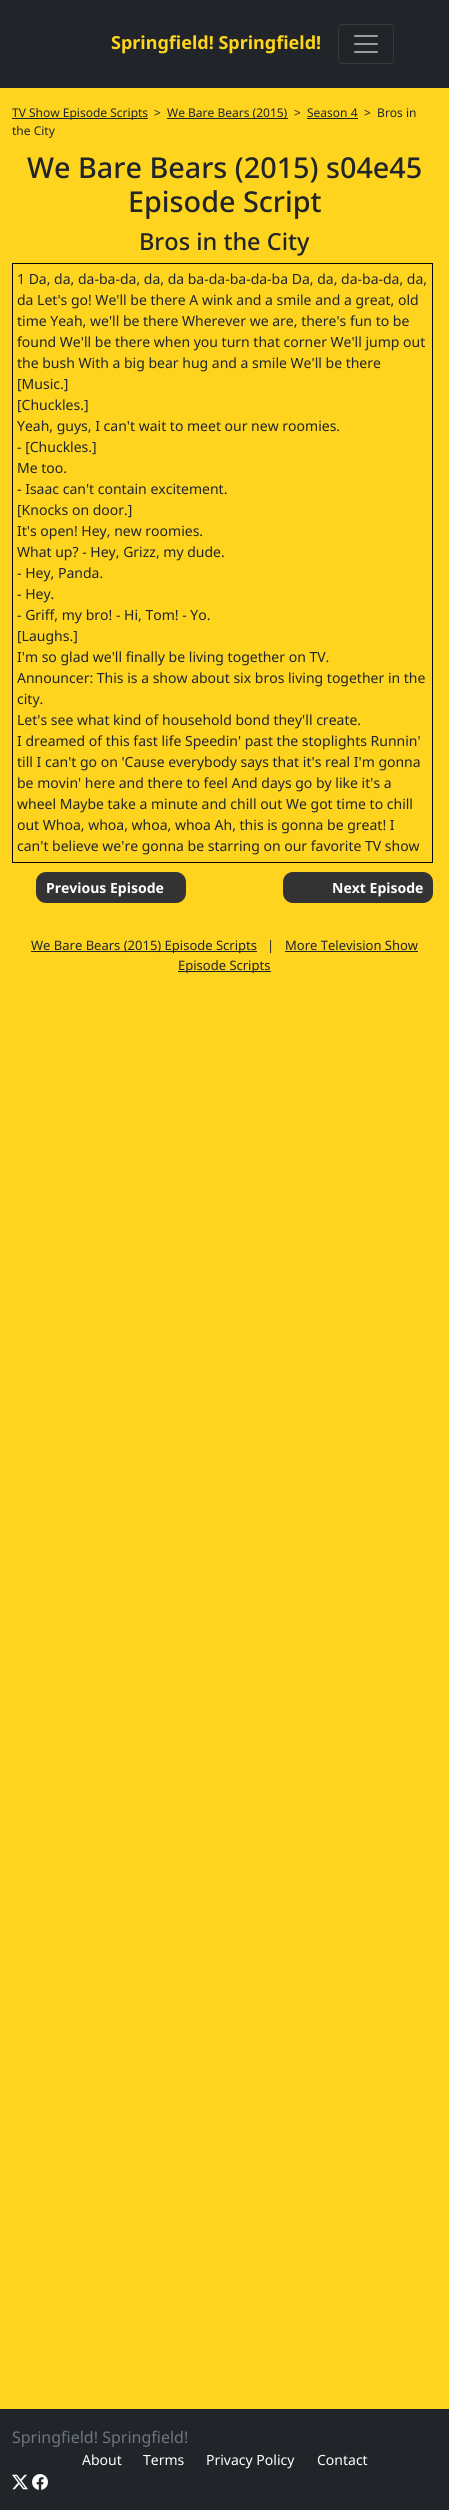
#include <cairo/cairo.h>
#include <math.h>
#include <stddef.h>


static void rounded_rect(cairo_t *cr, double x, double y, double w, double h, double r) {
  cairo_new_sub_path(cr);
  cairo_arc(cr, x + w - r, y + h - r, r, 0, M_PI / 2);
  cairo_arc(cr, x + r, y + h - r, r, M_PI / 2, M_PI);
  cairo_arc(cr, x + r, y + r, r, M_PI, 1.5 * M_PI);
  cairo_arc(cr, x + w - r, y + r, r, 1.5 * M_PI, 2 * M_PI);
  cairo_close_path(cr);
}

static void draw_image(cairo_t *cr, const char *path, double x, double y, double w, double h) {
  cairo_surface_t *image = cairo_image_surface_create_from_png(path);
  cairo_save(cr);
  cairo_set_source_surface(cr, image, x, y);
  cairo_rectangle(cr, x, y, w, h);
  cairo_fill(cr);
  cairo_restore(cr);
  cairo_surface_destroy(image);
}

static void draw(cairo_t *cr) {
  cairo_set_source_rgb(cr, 254 / 255.0, 212 / 255.0, 30 / 255.0);
  cairo_paint(cr);
  cairo_set_source_rgb(cr, 33 / 255.0, 37 / 255.0, 41 / 255.0);
  cairo_rectangle(cr, 0, 0, 449, 88);
  cairo_fill(cr);
  rounded_rect(cr, 338.5, 24.5, 55, 39, 3.5);
  cairo_set_source_rgb(cr, 55 / 255.0, 59 / 255.0, 62 / 255.0);
  cairo_set_line_width(cr, 1);
  cairo_stroke(cr);
  draw_image(cr, "images/1.png", 354, 35, 24, 18);
  cairo_set_source_rgb(cr, 33 / 255.0, 37 / 255.0, 41 / 255.0);
  cairo_rectangle(cr, 12, 118, 136, 1);
  cairo_fill(cr);
  cairo_rectangle(cr, 167, 118, 121, 1);
  cairo_fill(cr);
  cairo_rectangle(cr, 307, 118, 51, 1);
  cairo_fill(cr);
  cairo_rectangle(cr, 12.5, 263.5, 420, 599);
  cairo_set_source_rgb(cr, 0, 0, 0);
  cairo_stroke(cr);
  cairo_set_source_rgb(cr, 51 / 255.0, 51 / 255.0, 51 / 255.0);
  rounded_rect(cr, 36, 872, 150, 31, 10);
  cairo_fill(cr);
  rounded_rect(cr, 283, 872, 150, 31, 10);
  cairo_fill(cr);
  cairo_set_source_rgb(cr, 33 / 255.0, 37 / 255.0, 41 / 255.0);
  cairo_rectangle(cr, 31, 951, 226, 1);
  cairo_fill(cr);
  cairo_rectangle(cr, 285, 951, 133, 1);
  cairo_fill(cr);
  cairo_rectangle(cr, 178, 971, 93, 1);
  cairo_fill(cr);
  cairo_rectangle(cr, 0, 2409, 449, 101);
  cairo_fill(cr);
  draw_image(cr, "images/2.png", 12, 2474, 16, 16);
  draw_image(cr, "images/3.png", 32, 2474, 16, 16);
  cairo_select_font_face(cr, "Noto Sans", CAIRO_FONT_SLANT_NORMAL, CAIRO_FONT_WEIGHT_BOLD);
  cairo_set_font_size(cr, 18);
  cairo_set_source_rgb(cr, 254 / 255.0, 212 / 255.0, 30 / 255.0);
  cairo_move_to(cr, 111, 49);
  cairo_show_text(cr, "Springfield! Springfield!");
  cairo_select_font_face(cr, "Noto Sans", CAIRO_FONT_SLANT_NORMAL, CAIRO_FONT_WEIGHT_NORMAL);
  cairo_set_font_size(cr, 12);
  cairo_set_source_rgb(cr, 33 / 255.0, 37 / 255.0, 41 / 255.0);
  cairo_move_to(cr, 12, 117);
  cairo_show_text(cr, "TV Show Episode Scripts");
  cairo_move_to(cr, 154, 117);
  cairo_show_text(cr, ">");
  cairo_move_to(cr, 167, 117);
  cairo_show_text(cr, "We Bare Bears (2015)");
  cairo_move_to(cr, 294, 117);
  cairo_show_text(cr, ">");
  cairo_move_to(cr, 307, 117);
  cairo_show_text(cr, "Season 4");
  cairo_move_to(cr, 364, 117);
  cairo_show_text(cr, ">  Bros in");
  cairo_move_to(cr, 12, 135);
  cairo_show_text(cr, "the City");
  cairo_select_font_face(cr, "Noto Sans Medium", CAIRO_FONT_SLANT_NORMAL, CAIRO_FONT_WEIGHT_NORMAL);
  cairo_set_font_size(cr, 28.75);
  cairo_move_to(cr, 27, 178);
  cairo_show_text(cr, "We Bare Bears (2015) s04e45");
  cairo_move_to(cr, 128, 212);
  cairo_show_text(cr, "Episode Script");
  cairo_set_font_size(cr, 23.5);
  cairo_move_to(cr, 139, 250);
  cairo_show_text(cr, "Bros in the City");
  cairo_select_font_face(cr, "Noto Sans", CAIRO_FONT_SLANT_NORMAL, CAIRO_FONT_WEIGHT_NORMAL);
  cairo_set_font_size(cr, 14);
  cairo_move_to(cr, 17, 284);
  cairo_show_text(cr, "1 Da, da, da-ba-da, da, da ba-da-ba-da-ba Da, da, da-ba-da, da,");
  cairo_move_to(cr, 17, 305);
  cairo_show_text(cr, "da Let's go! We'll be there A wink and a smile and a great, old");
  cairo_move_to(cr, 17, 326);
  cairo_show_text(cr, "time Yeah, we'll be there Wherever we are, there's fun to be");
  cairo_move_to(cr, 17, 347);
  cairo_show_text(cr, "found We'll be there when you turn that corner We'll jump out");
  cairo_move_to(cr, 17, 368);
  cairo_show_text(cr, "the bush With a big bear hug and a smile We'll be there");
  cairo_move_to(cr, 17, 389);
  cairo_show_text(cr, "[Music.]");
  cairo_move_to(cr, 17, 410);
  cairo_show_text(cr, "[Chuckles.]");
  cairo_move_to(cr, 17, 431);
  cairo_show_text(cr, "Yeah, guys, I can't wait to meet our new roomies.");
  cairo_move_to(cr, 17, 452);
  cairo_show_text(cr, "- [Chuckles.]");
  cairo_move_to(cr, 17, 473);
  cairo_show_text(cr, "Me too.");
  cairo_move_to(cr, 17, 494);
  cairo_show_text(cr, "- Isaac can't contain excitement.");
  cairo_move_to(cr, 17, 515);
  cairo_show_text(cr, "[Knocks on door.]");
  cairo_move_to(cr, 17, 536);
  cairo_show_text(cr, "It's open! Hey, new roomies.");
  cairo_move_to(cr, 17, 557);
  cairo_show_text(cr, "What up? - Hey, Grizz, my dude.");
  cairo_move_to(cr, 17, 578);
  cairo_show_text(cr, "- Hey, Panda.");
  cairo_move_to(cr, 17, 599);
  cairo_show_text(cr, "- Hey.");
  cairo_move_to(cr, 17, 620);
  cairo_show_text(cr, "- Griff, my bro! - Hi, Tom! - Yo.");
  cairo_move_to(cr, 17, 641);
  cairo_show_text(cr, "[Laughs.]");
  cairo_move_to(cr, 17, 662);
  cairo_show_text(cr, "I'm so glad we'll finally be living together on TV.");
  cairo_move_to(cr, 17, 683);
  cairo_show_text(cr, "Announcer: This is a show about six bros living together in the");
  cairo_move_to(cr, 17, 704);
  cairo_show_text(cr, "city.");
  cairo_move_to(cr, 17, 725);
  cairo_show_text(cr, "Let's see what kind of household bond they'll create.");
  cairo_move_to(cr, 17, 746);
  cairo_show_text(cr, "I dreamed of this fast life Speedin' past the stoplights Runnin'");
  cairo_move_to(cr, 17, 767);
  cairo_show_text(cr, "till I can't go on 'Cause everybody says that it's real I'm gonna");
  cairo_move_to(cr, 17, 788);
  cairo_show_text(cr, "be movin' here and there to feel And days go by like it's a");
  cairo_move_to(cr, 17, 809);
  cairo_show_text(cr, "wheel Maybe take a minute and chill out We got time to chill");
  cairo_move_to(cr, 17, 830);
  cairo_show_text(cr, "out Whoa, whoa, whoa, whoa Ah, this is gonna be great! I");
  cairo_move_to(cr, 17, 851);
  cairo_show_text(cr, "can't believe we're gonna be starring on our favorite TV show");
  cairo_select_font_face(cr, "Noto Sans", CAIRO_FONT_SLANT_NORMAL, CAIRO_FONT_WEIGHT_BOLD);
  cairo_set_source_rgb(cr, 1, 1, 1);
  cairo_move_to(cr, 46, 893);
  cairo_show_text(cr, "Previous Episode");
  cairo_move_to(cr, 332, 893);
  cairo_show_text(cr, "Next Episode");
  cairo_select_font_face(cr, "Noto Sans", CAIRO_FONT_SLANT_NORMAL, CAIRO_FONT_WEIGHT_NORMAL);
  cairo_set_font_size(cr, 13);
  cairo_set_source_rgb(cr, 33 / 255.0, 37 / 255.0, 41 / 255.0);
  cairo_move_to(cr, 31, 950);
  cairo_show_text(cr, "We Bare Bears (2015) Episode Scripts");
  cairo_move_to(cr, 267, 950);
  cairo_show_text(cr, "|");
  cairo_move_to(cr, 285, 950);
  cairo_show_text(cr, "More Television Show");
  cairo_move_to(cr, 178, 970);
  cairo_show_text(cr, "Episode Scripts");
  cairo_set_font_size(cr, 16);
  cairo_set_source_rgb(cr, 108 / 255.0, 117 / 255.0, 125 / 255.0);
  cairo_move_to(cr, 12, 2443);
  cairo_show_text(cr, "Springfield! Springfield!");
  cairo_set_font_size(cr, 14);
  cairo_set_source_rgb(cr, 1, 1, 1);
  cairo_move_to(cr, 82, 2465);
  cairo_show_text(cr, "About");
  cairo_move_to(cr, 143, 2465);
  cairo_show_text(cr, "Terms");
  cairo_move_to(cr, 206, 2465);
  cairo_show_text(cr, "Privacy Policy");
  cairo_move_to(cr, 317, 2465);
  cairo_show_text(cr, "Contact");
}

int main(void) {
  cairo_surface_t *surface = cairo_image_surface_create(CAIRO_FORMAT_RGB24, 449, 2510);
  cairo_t *cr = cairo_create(surface);
  cairo_font_options_t *options = cairo_font_options_create();
  cairo_font_options_set_hint_metrics(options, CAIRO_HINT_METRICS_OFF);
  cairo_font_options_set_hint_style(options, CAIRO_HINT_STYLE_NONE);
  cairo_set_font_options(cr, options);
  cairo_set_miter_limit(cr, 4);
  draw(cr);
  cairo_surface_write_to_png(surface, "out.png");
  cairo_font_options_destroy(options);
  cairo_destroy(cr);
  cairo_surface_destroy(surface);
  return 0;
}
